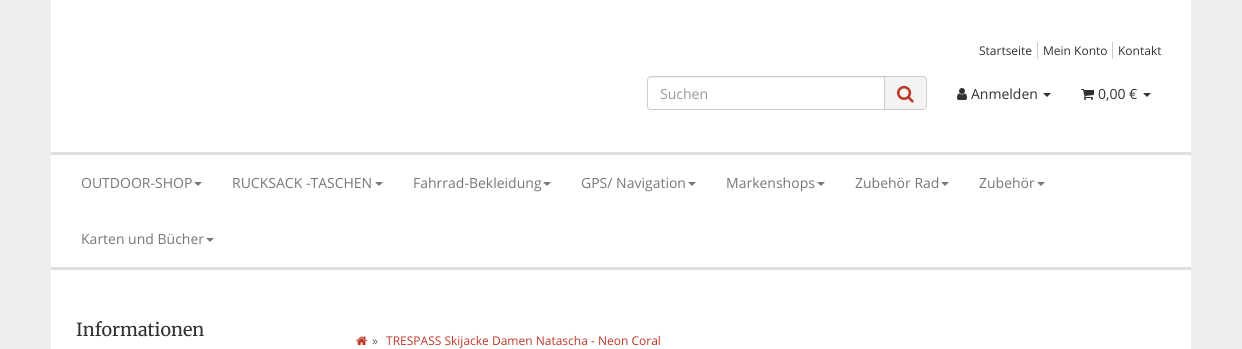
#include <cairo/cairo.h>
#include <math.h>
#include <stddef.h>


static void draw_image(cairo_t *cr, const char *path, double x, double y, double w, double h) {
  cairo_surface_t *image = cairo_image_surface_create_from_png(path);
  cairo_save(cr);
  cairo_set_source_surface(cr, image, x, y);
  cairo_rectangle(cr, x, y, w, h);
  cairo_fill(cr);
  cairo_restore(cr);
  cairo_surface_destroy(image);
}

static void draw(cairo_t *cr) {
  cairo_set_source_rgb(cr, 238 / 255.0, 238 / 255.0, 238 / 255.0);
  cairo_paint(cr);
  cairo_set_source_rgb(cr, 1, 1, 1);
  cairo_rectangle(cr, 51, 0, 1140, 152);
  cairo_fill(cr);
  cairo_set_source_rgb(cr, 204 / 255.0, 204 / 255.0, 204 / 255.0);
  cairo_rectangle(cr, 1037, 42, 1, 17);
  cairo_fill(cr);
  cairo_rectangle(cr, 1112, 42, 1, 17);
  cairo_fill(cr);
  cairo_set_source_rgb(cr, 236 / 255.0, 236 / 255.0, 236 / 255.0);
  cairo_new_path(cr);
  cairo_move_to(cr, 651, 78);
  cairo_line_to(cr, 884, 78);
  cairo_line_to(cr, 884, 77);
  cairo_line_to(cr, 651, 77);
  cairo_curve_to(cr, 649, 77, 648, 79, 648, 81);
  cairo_curve_to(cr, 648, 79, 649, 78, 651, 78);
  cairo_close_path(cr);
  cairo_fill(cr);
  cairo_new_path(cr);
  cairo_move_to(cr, 651, 76.5);
  cairo_line_to(cr, 884.5, 76.5);
  cairo_line_to(cr, 884.5, 109.5);
  cairo_line_to(cr, 651, 109.5);
  cairo_curve_to(cr, 649, 109.5, 647.5, 108, 647.5, 106);
  cairo_line_to(cr, 647.5, 80);
  cairo_curve_to(cr, 647.5, 78, 649, 76.5, 651, 76.5);
  cairo_close_path(cr);
  cairo_set_source_rgb(cr, 204 / 255.0, 204 / 255.0, 204 / 255.0);
  cairo_set_line_width(cr, 1);
  cairo_stroke(cr);
  cairo_set_source_rgb(cr, 243 / 255.0, 243 / 255.0, 243 / 255.0);
  cairo_new_path(cr);
  cairo_move_to(cr, 885, 76);
  cairo_line_to(cr, 923, 76);
  cairo_curve_to(cr, 925, 76, 927, 78, 927, 80);
  cairo_line_to(cr, 927, 106);
  cairo_curve_to(cr, 927, 108, 925, 110, 923, 110);
  cairo_line_to(cr, 885, 110);
  cairo_close_path(cr);
  cairo_fill(cr);
  cairo_set_source_rgb(cr, 204 / 255.0, 204 / 255.0, 204 / 255.0);
  cairo_set_fill_rule(cr, CAIRO_FILL_RULE_EVEN_ODD);
  cairo_new_path(cr);
  cairo_move_to(cr, 885, 76);
  cairo_line_to(cr, 923, 76);
  cairo_curve_to(cr, 925, 76, 927, 78, 927, 80);
  cairo_line_to(cr, 927, 106);
  cairo_curve_to(cr, 927, 108, 925, 110, 923, 110);
  cairo_line_to(cr, 885, 110);
  cairo_close_path(cr);
  cairo_move_to(cr, 885, 77);
  cairo_line_to(cr, 923, 77);
  cairo_curve_to(cr, 925, 77, 926, 78, 926, 80);
  cairo_line_to(cr, 926, 106);
  cairo_curve_to(cr, 926, 108, 925, 109, 923, 109);
  cairo_line_to(cr, 885, 109);
  cairo_close_path(cr);
  cairo_fill(cr);
  draw_image(cr, "images/1.png", 897, 85, 17, 18);
  draw_image(cr, "images/2.png", 957, 88, 10, 12);
  cairo_set_source_rgb(cr, 49 / 255.0, 49 / 255.0, 49 / 255.0);
  cairo_set_fill_rule(cr, CAIRO_FILL_RULE_WINDING);
  cairo_new_path(cr);
  cairo_move_to(cr, 1043, 93);
  cairo_line_to(cr, 1051, 93);
  cairo_line_to(cr, 1047, 97);
  cairo_close_path(cr);
  cairo_fill(cr);
  draw_image(cr, "images/3.png", 1081, 89, 13, 11);
  cairo_new_path(cr);
  cairo_move_to(cr, 1143, 93);
  cairo_line_to(cr, 1151, 93);
  cairo_line_to(cr, 1147, 97);
  cairo_close_path(cr);
  cairo_fill(cr);
  cairo_set_source_rgb(cr, 1, 1, 1);
  cairo_rectangle(cr, 51, 155, 1140, 112);
  cairo_fill(cr);
  cairo_set_source_rgb(cr, 223 / 255.0, 223 / 255.0, 223 / 255.0);
  cairo_rectangle(cr, 51, 152, 1140, 3);
  cairo_fill(cr);
  cairo_rectangle(cr, 51, 267, 1140, 3);
  cairo_fill(cr);
  cairo_set_source_rgb(cr, 119 / 255.0, 119 / 255.0, 119 / 255.0);
  cairo_new_path(cr);
  cairo_move_to(cr, 194, 182);
  cairo_line_to(cr, 202, 182);
  cairo_line_to(cr, 198, 186);
  cairo_close_path(cr);
  cairo_fill(cr);
  cairo_new_path(cr);
  cairo_move_to(cr, 375, 182);
  cairo_line_to(cr, 383, 182);
  cairo_line_to(cr, 379, 186);
  cairo_close_path(cr);
  cairo_fill(cr);
  cairo_new_path(cr);
  cairo_move_to(cr, 543, 182);
  cairo_line_to(cr, 551, 182);
  cairo_line_to(cr, 547, 186);
  cairo_close_path(cr);
  cairo_fill(cr);
  cairo_new_path(cr);
  cairo_move_to(cr, 688, 182);
  cairo_line_to(cr, 696, 182);
  cairo_line_to(cr, 692, 186);
  cairo_close_path(cr);
  cairo_fill(cr);
  cairo_new_path(cr);
  cairo_move_to(cr, 817, 182);
  cairo_line_to(cr, 825, 182);
  cairo_line_to(cr, 821, 186);
  cairo_close_path(cr);
  cairo_fill(cr);
  cairo_new_path(cr);
  cairo_move_to(cr, 941, 182);
  cairo_line_to(cr, 949, 182);
  cairo_line_to(cr, 945, 186);
  cairo_close_path(cr);
  cairo_fill(cr);
  cairo_new_path(cr);
  cairo_move_to(cr, 1037, 182);
  cairo_line_to(cr, 1045, 182);
  cairo_line_to(cr, 1041, 186);
  cairo_close_path(cr);
  cairo_fill(cr);
  cairo_new_path(cr);
  cairo_move_to(cr, 206, 238);
  cairo_line_to(cr, 214, 238);
  cairo_line_to(cr, 210, 242);
  cairo_close_path(cr);
  cairo_fill(cr);
  cairo_set_source_rgb(cr, 1, 1, 1);
  cairo_rectangle(cr, 51, 270, 1140, 79);
  cairo_fill(cr);
  draw_image(cr, "images/4.png", 356, 336, 11, 9);
  cairo_select_font_face(cr, "Open Sans", CAIRO_FONT_SLANT_NORMAL, CAIRO_FONT_WEIGHT_NORMAL);
  cairo_set_font_size(cr, 12);
  cairo_set_source_rgb(cr, 49 / 255.0, 49 / 255.0, 49 / 255.0);
  cairo_move_to(cr, 979, 55);
  cairo_show_text(cr, "Startseite");
  cairo_move_to(cr, 1043, 55);
  cairo_show_text(cr, "Mein Konto");
  cairo_move_to(cr, 1118, 55);
  cairo_show_text(cr, "Kontakt");
  cairo_set_font_size(cr, 14);
  cairo_set_source_rgb(cr, 153 / 255.0, 153 / 255.0, 153 / 255.0);
  cairo_move_to(cr, 660, 99);
  cairo_show_text(cr, "Suchen");
  cairo_set_source_rgb(cr, 49 / 255.0, 49 / 255.0, 49 / 255.0);
  cairo_move_to(cr, 971, 99);
  cairo_show_text(cr, "Anmelden");
  cairo_move_to(cr, 1098, 99);
  cairo_show_text(cr, "0,00 €");
  cairo_set_source_rgb(cr, 119 / 255.0, 119 / 255.0, 119 / 255.0);
  cairo_move_to(cr, 81, 188);
  cairo_show_text(cr, "OUTDOOR-SHOP");
  cairo_move_to(cr, 232, 188);
  cairo_show_text(cr, "RUCKSACK -TASCHEN");
  cairo_move_to(cr, 413, 188);
  cairo_show_text(cr, "Fahrrad-Bekleidung");
  cairo_move_to(cr, 581, 188);
  cairo_show_text(cr, "GPS/ Navigation");
  cairo_move_to(cr, 726, 188);
  cairo_show_text(cr, "Markenshops");
  cairo_move_to(cr, 855, 188);
  cairo_show_text(cr, "Zubehör Rad");
  cairo_move_to(cr, 979, 188);
  cairo_show_text(cr, "Zubehör");
  cairo_move_to(cr, 81, 244);
  cairo_show_text(cr, "Karten und Bücher");
  cairo_select_font_face(cr, "Merriweather", CAIRO_FONT_SLANT_NORMAL, CAIRO_FONT_WEIGHT_NORMAL);
  cairo_set_font_size(cr, 18);
  cairo_set_source_rgb(cr, 49 / 255.0, 49 / 255.0, 49 / 255.0);
  cairo_move_to(cr, 76, 336);
  cairo_show_text(cr, "Informationen");
  cairo_select_font_face(cr, "Open Sans", CAIRO_FONT_SLANT_NORMAL, CAIRO_FONT_WEIGHT_NORMAL);
  cairo_set_font_size(cr, 12);
  cairo_set_source_rgb(cr, 96 / 255.0, 96 / 255.0, 96 / 255.0);
  cairo_move_to(cr, 372, 345);
  cairo_show_text(cr, "»");
  cairo_set_source_rgb(cr, 188 / 255.0, 55 / 255.0, 38 / 255.0);
  cairo_move_to(cr, 386, 345);
  cairo_show_text(cr, "TRESPASS Skijacke Damen Natascha - Neon Coral");
}

int main(void) {
  cairo_surface_t *surface = cairo_image_surface_create(CAIRO_FORMAT_RGB24, 1242, 349);
  cairo_t *cr = cairo_create(surface);
  cairo_font_options_t *options = cairo_font_options_create();
  cairo_font_options_set_hint_metrics(options, CAIRO_HINT_METRICS_OFF);
  cairo_font_options_set_hint_style(options, CAIRO_HINT_STYLE_NONE);
  cairo_set_font_options(cr, options);
  cairo_set_miter_limit(cr, 4);
  draw(cr);
  cairo_surface_write_to_png(surface, "out.png");
  cairo_font_options_destroy(options);
  cairo_destroy(cr);
  cairo_surface_destroy(surface);
  return 0;
}
